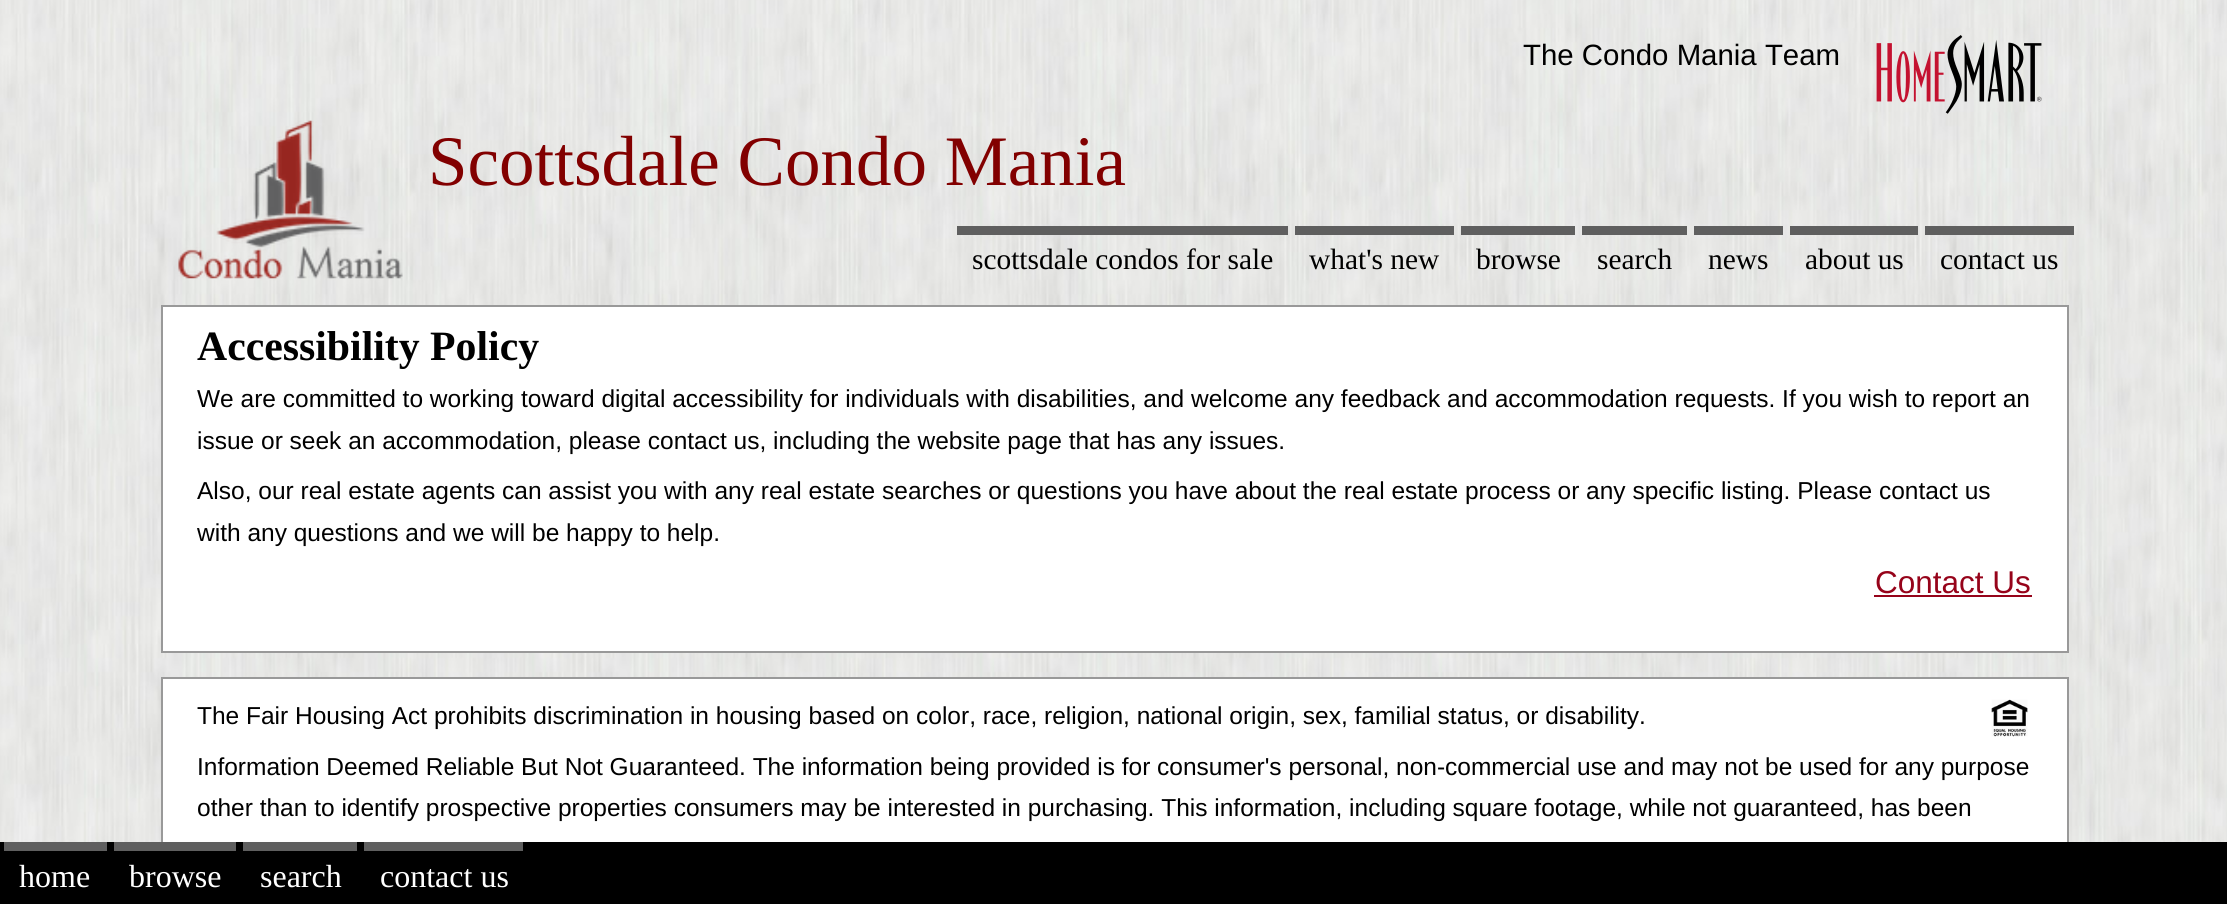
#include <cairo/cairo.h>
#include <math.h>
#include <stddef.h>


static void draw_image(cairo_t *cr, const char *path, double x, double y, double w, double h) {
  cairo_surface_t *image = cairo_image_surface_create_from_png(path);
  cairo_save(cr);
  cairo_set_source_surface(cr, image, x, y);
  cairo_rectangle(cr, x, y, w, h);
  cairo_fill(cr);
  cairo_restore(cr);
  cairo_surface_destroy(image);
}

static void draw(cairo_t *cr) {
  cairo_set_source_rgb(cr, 1, 1, 1);
  cairo_paint(cr);
  draw_image(cr, "images/1.png", 0, 0, 2227, 842);
  draw_image(cr, "images/2.png", 1876, 35, 166, 79);
  draw_image(cr, "images/3.png", 178, 120, 225, 159);
  cairo_set_source_rgb(cr, 95 / 255.0, 95 / 255.0, 95 / 255.0);
  cairo_rectangle(cr, 957, 226, 331, 9);
  cairo_fill(cr);
  cairo_rectangle(cr, 1295, 226, 159, 9);
  cairo_fill(cr);
  cairo_rectangle(cr, 1461, 226, 114, 9);
  cairo_fill(cr);
  cairo_rectangle(cr, 1582, 226, 105, 9);
  cairo_fill(cr);
  cairo_rectangle(cr, 1694, 226, 89, 9);
  cairo_fill(cr);
  cairo_rectangle(cr, 1790, 226, 128, 9);
  cairo_fill(cr);
  cairo_rectangle(cr, 1925, 226, 149, 9);
  cairo_fill(cr);
  cairo_set_source_rgb(cr, 1, 1, 1);
  cairo_rectangle(cr, 162, 306, 1906, 346);
  cairo_fill_preserve(cr);
  cairo_set_source_rgb(cr, 153 / 255.0, 153 / 255.0, 153 / 255.0);
  cairo_stroke(cr);
  cairo_set_source_rgb(cr, 150 / 255.0, 3 / 255.0, 26 / 255.0);
  cairo_rectangle(cr, 1874, 595, 158, 2);
  cairo_fill(cr);
  cairo_set_source_rgb(cr, 1, 1, 1);
  cairo_rectangle(cr, 163, 679, 1904, 163);
  cairo_fill(cr);
  cairo_rectangle(cr, 162, 678, 1906, 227);
  cairo_set_source_rgb(cr, 153 / 255.0, 153 / 255.0, 153 / 255.0);
  cairo_stroke(cr);
  draw_image(cr, "images/4.png", 1991, 699, 37, 38);
  cairo_set_source_rgb(cr, 0, 0, 0);
  cairo_rectangle(cr, 0, 842, 2227, 62);
  cairo_fill(cr);
  cairo_set_source_rgb(cr, 95 / 255.0, 95 / 255.0, 95 / 255.0);
  cairo_rectangle(cr, 4, 842, 103, 9);
  cairo_fill(cr);
  cairo_rectangle(cr, 114, 842, 122, 9);
  cairo_fill(cr);
  cairo_rectangle(cr, 243, 842, 114, 9);
  cairo_fill(cr);
  cairo_rectangle(cr, 364, 842, 159, 9);
  cairo_fill(cr);
  cairo_select_font_face(cr, "Liberation Sans", CAIRO_FONT_SLANT_NORMAL, CAIRO_FONT_WEIGHT_NORMAL);
  cairo_set_font_size(cr, 29.4);
  cairo_set_source_rgb(cr, 0, 0, 0);
  cairo_move_to(cr, 1523, 65);
  cairo_show_text(cr, "The Condo Mania Team");
  cairo_select_font_face(cr, "Liberation Serif", CAIRO_FONT_SLANT_NORMAL, CAIRO_FONT_WEIGHT_NORMAL);
  cairo_set_font_size(cr, 71);
  cairo_set_source_rgb(cr, 130 / 255.0, 0, 0);
  cairo_move_to(cr, 428, 185);
  cairo_show_text(cr, "Scottsdale Condo Mania");
  cairo_set_font_size(cr, 29.4);
  cairo_set_source_rgb(cr, 0, 0, 0);
  cairo_move_to(cr, 972, 269);
  cairo_show_text(cr, "scottsdale condos for sale");
  cairo_move_to(cr, 1309, 269);
  cairo_show_text(cr, "what's new");
  cairo_move_to(cr, 1476, 269);
  cairo_show_text(cr, "browse");
  cairo_move_to(cr, 1597, 269);
  cairo_show_text(cr, "search");
  cairo_move_to(cr, 1708, 269);
  cairo_show_text(cr, "news");
  cairo_move_to(cr, 1805, 269);
  cairo_show_text(cr, "about us");
  cairo_move_to(cr, 1940, 269);
  cairo_show_text(cr, "contact us");
  cairo_select_font_face(cr, "Liberation Serif", CAIRO_FONT_SLANT_NORMAL, CAIRO_FONT_WEIGHT_BOLD);
  cairo_set_font_size(cr, 41.75);
  cairo_move_to(cr, 197, 360);
  cairo_show_text(cr, "Accessibility Policy");
  cairo_select_font_face(cr, "Liberation Sans", CAIRO_FONT_SLANT_NORMAL, CAIRO_FONT_WEIGHT_NORMAL);
  cairo_set_font_size(cr, 24.5);
  cairo_move_to(cr, 197, 407);
  cairo_show_text(cr, "We are committed to working toward digital accessibility for individuals with disabilities, and welcome any feedback and accommodation requests. If you wish to report an");
  cairo_move_to(cr, 197, 449);
  cairo_show_text(cr, "issue or seek an accommodation, please contact us, including the website page that has any issues.");
  cairo_move_to(cr, 197, 499);
  cairo_show_text(cr, "Also, our real estate agents can assist you with any real estate searches or questions you have about the real estate process or any specific listing. Please contact us");
  cairo_move_to(cr, 197, 541);
  cairo_show_text(cr, "with any questions and we will be happy to help.");
  cairo_set_font_size(cr, 31.5);
  cairo_set_source_rgb(cr, 150 / 255.0, 3 / 255.0, 26 / 255.0);
  cairo_move_to(cr, 1875, 593);
  cairo_show_text(cr, "Contact Us");
  cairo_set_font_size(cr, 24.5);
  cairo_set_source_rgb(cr, 0, 0, 0);
  cairo_move_to(cr, 197, 724);
  cairo_show_text(cr, "The Fair Housing Act prohibits discrimination in housing based on color, race, religion, national origin, sex, familial status, or disability.");
  cairo_move_to(cr, 197, 775);
  cairo_show_text(cr, "Information Deemed Reliable But Not Guaranteed. The information being provided is for consumer's personal, non-commercial use and may not be used for any purpose");
  cairo_move_to(cr, 197, 816);
  cairo_show_text(cr, "other than to identify prospective properties consumers may be interested in purchasing. This information, including square footage, while not guaranteed, has been");
  cairo_select_font_face(cr, "Liberation Serif", CAIRO_FONT_SLANT_NORMAL, CAIRO_FONT_WEIGHT_NORMAL);
  cairo_set_font_size(cr, 32);
  cairo_set_source_rgb(cr, 1, 1, 1);
  cairo_move_to(cr, 19, 887);
  cairo_show_text(cr, "home");
  cairo_move_to(cr, 129, 887);
  cairo_show_text(cr, "browse");
  cairo_move_to(cr, 260, 887);
  cairo_show_text(cr, "search");
  cairo_move_to(cr, 380, 887);
  cairo_show_text(cr, "contact us");
}

int main(void) {
  cairo_surface_t *surface = cairo_image_surface_create(CAIRO_FORMAT_RGB24, 2227, 904);
  cairo_t *cr = cairo_create(surface);
  cairo_font_options_t *options = cairo_font_options_create();
  cairo_font_options_set_hint_metrics(options, CAIRO_HINT_METRICS_OFF);
  cairo_font_options_set_hint_style(options, CAIRO_HINT_STYLE_NONE);
  cairo_set_font_options(cr, options);
  cairo_set_miter_limit(cr, 4);
  draw(cr);
  cairo_surface_write_to_png(surface, "out.png");
  cairo_font_options_destroy(options);
  cairo_destroy(cr);
  cairo_surface_destroy(surface);
  return 0;
}
